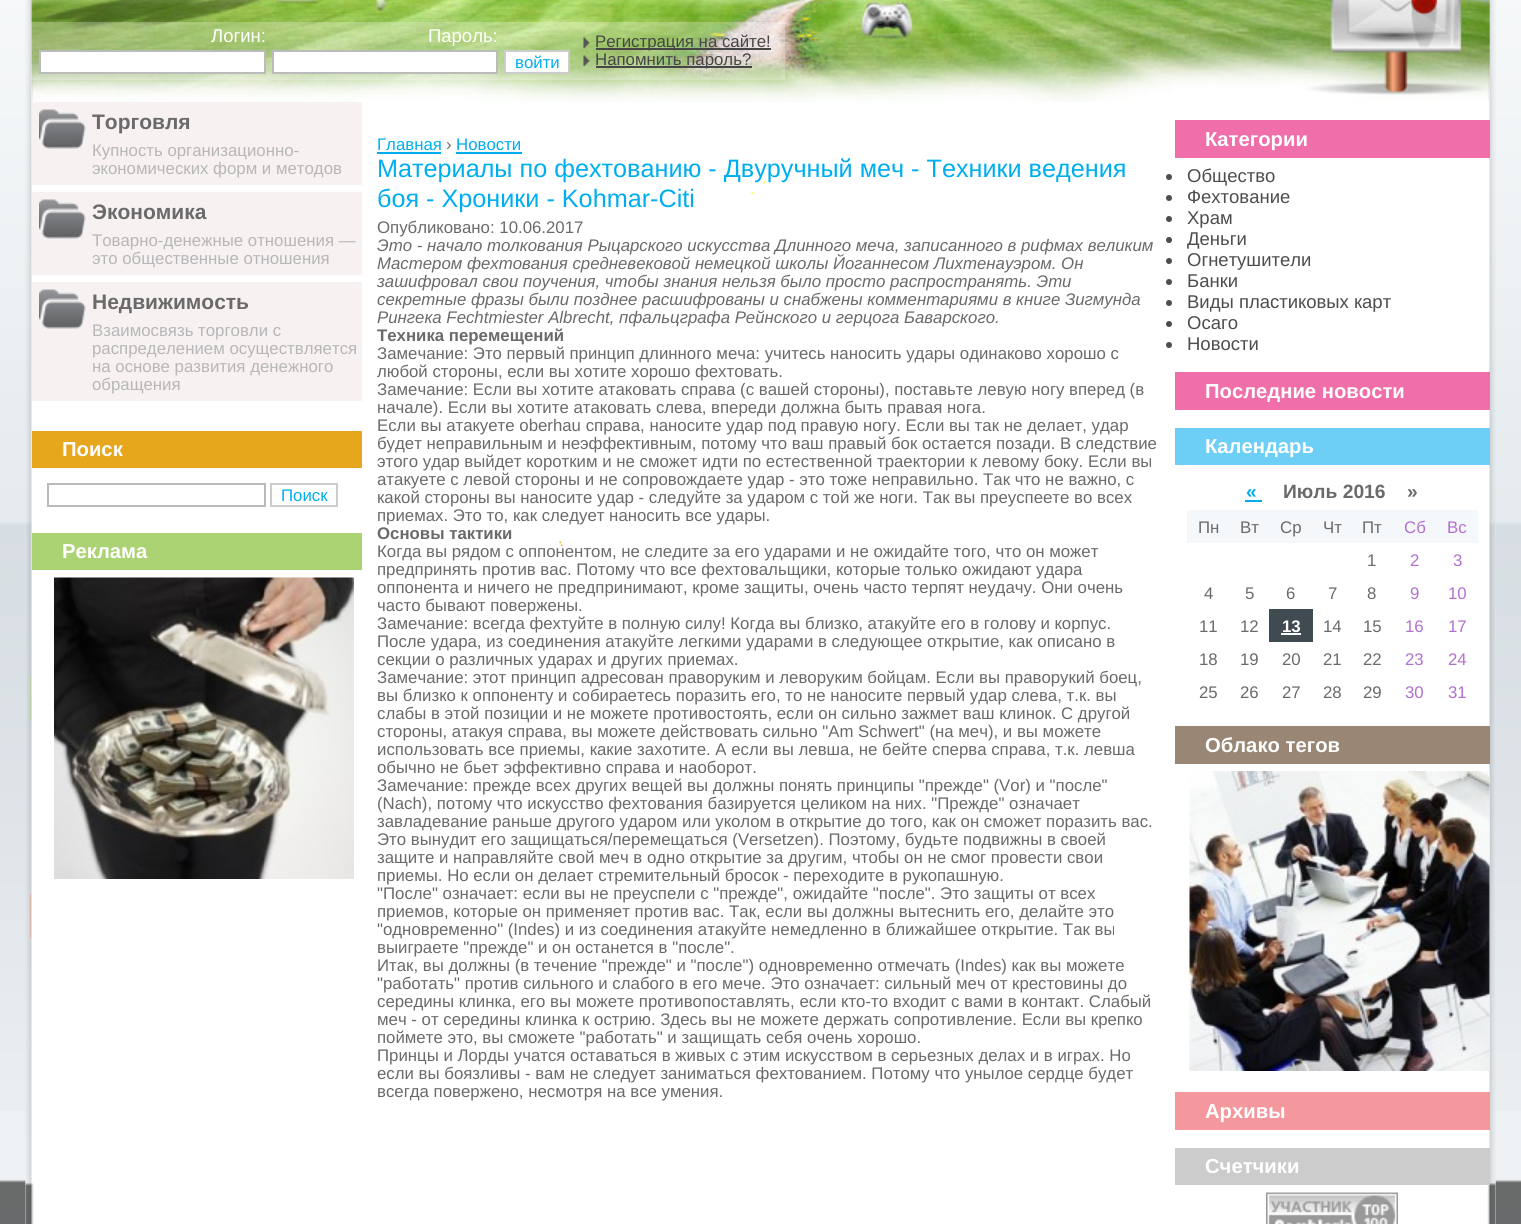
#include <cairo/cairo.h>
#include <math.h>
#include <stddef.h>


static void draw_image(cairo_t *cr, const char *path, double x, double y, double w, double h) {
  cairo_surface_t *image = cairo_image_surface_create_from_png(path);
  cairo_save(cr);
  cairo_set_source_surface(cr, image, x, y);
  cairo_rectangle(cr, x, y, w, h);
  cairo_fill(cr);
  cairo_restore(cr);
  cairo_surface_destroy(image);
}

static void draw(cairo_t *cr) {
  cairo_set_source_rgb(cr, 239 / 255.0, 242 / 255.0, 245 / 255.0);
  cairo_paint(cr);
  draw_image(cr, "images/1.png", 0, 0, 1521, 1111);
  draw_image(cr, "images/2.png", 0, 1180, 1521, 44);
  draw_image(cr, "images/3.png", 25, 0, 1471, 1224);
  draw_image(cr, "images/4.png", 25, 0, 1471, 1224);
  draw_image(cr, "images/5.png", 25, 1183, 1471, 41);
  draw_image(cr, "images/6.png", 31, 0, 1459, 102);
  cairo_set_source_rgba(cr, 1, 1, 1, 0.26);
  cairo_rectangle(cr, 31, 22, 754, 58);
  cairo_fill(cr);
  draw_image(cr, "images/7.png", 583, 37, 7, 11);
  cairo_set_source_rgb(cr, 70 / 255.0, 70 / 255.0, 70 / 255.0);
  cairo_rectangle(cr, 596, 48, 175, 2);
  cairo_fill(cr);
  draw_image(cr, "images/8.png", 583, 55, 7, 11);
  cairo_rectangle(cr, 596, 66, 156, 2);
  cairo_fill(cr);
  cairo_set_source_rgb(cr, 1, 1, 1);
  cairo_rectangle(cr, 40, 51, 225, 22);
  cairo_fill_preserve(cr);
  cairo_set_source_rgb(cr, 187 / 255.0, 187 / 255.0, 187 / 255.0);
  cairo_stroke(cr);
  cairo_set_source_rgb(cr, 1, 1, 1);
  cairo_rectangle(cr, 273, 51, 224, 22);
  cairo_fill_preserve(cr);
  cairo_set_source_rgb(cr, 187 / 255.0, 187 / 255.0, 187 / 255.0);
  cairo_stroke(cr);
  cairo_set_source_rgb(cr, 1, 1, 1);
  cairo_rectangle(cr, 505, 51, 64, 22);
  cairo_fill_preserve(cr);
  cairo_set_source_rgb(cr, 204 / 255.0, 204 / 255.0, 204 / 255.0);
  cairo_stroke(cr);
  draw_image(cr, "images/9.png", 1305, 0, 185, 95);
  cairo_set_source_rgb(cr, 247 / 255.0, 241 / 255.0, 241 / 255.0);
  cairo_rectangle(cr, 32, 102, 330, 83);
  cairo_fill(cr);
  draw_image(cr, "images/10.png", 39, 109, 47, 40);
  cairo_rectangle(cr, 32, 192, 330, 83);
  cairo_fill(cr);
  draw_image(cr, "images/10.png", 39, 199, 47, 40);
  cairo_rectangle(cr, 32, 282, 330, 119);
  cairo_fill(cr);
  draw_image(cr, "images/10.png", 39, 289, 47, 40);
  cairo_set_source_rgb(cr, 231 / 255.0, 167 / 255.0, 29 / 255.0);
  cairo_rectangle(cr, 32, 431, 330, 37);
  cairo_fill(cr);
  cairo_rectangle(cr, 48, 484, 217, 22);
  cairo_set_source_rgb(cr, 187 / 255.0, 187 / 255.0, 187 / 255.0);
  cairo_stroke(cr);
  cairo_rectangle(cr, 271, 484, 66, 22);
  cairo_set_source_rgb(cr, 204 / 255.0, 204 / 255.0, 204 / 255.0);
  cairo_stroke(cr);
  cairo_set_source_rgb(cr, 172 / 255.0, 211 / 255.0, 115 / 255.0);
  cairo_rectangle(cr, 32, 533, 330, 37);
  cairo_fill(cr);
  draw_image(cr, "images/11.png", 54, 577, 300, 302);
  cairo_set_source_rgb(cr, 0, 174 / 255.0, 239 / 255.0);
  cairo_rectangle(cr, 377, 152, 64, 2);
  cairo_fill(cr);
  cairo_rectangle(cr, 456, 152, 66, 2);
  cairo_fill(cr);
  cairo_set_source_rgb(cr, 240 / 255.0, 110 / 255.0, 170 / 255.0);
  cairo_rectangle(cr, 1175, 120, 315, 38);
  cairo_fill(cr);
  cairo_set_source_rgb(cr, 77 / 255.0, 77 / 255.0, 77 / 255.0);
  cairo_arc(cr, 1169, 177, 3, 0, 2 * M_PI);
  cairo_fill(cr);
  cairo_arc(cr, 1169, 198, 3, 0, 2 * M_PI);
  cairo_fill(cr);
  cairo_arc(cr, 1169, 219, 3, 0, 2 * M_PI);
  cairo_fill(cr);
  cairo_arc(cr, 1169, 240, 3, 0, 2 * M_PI);
  cairo_fill(cr);
  cairo_arc(cr, 1169, 261, 3, 0, 2 * M_PI);
  cairo_fill(cr);
  cairo_arc(cr, 1169, 282, 3, 0, 2 * M_PI);
  cairo_fill(cr);
  cairo_arc(cr, 1169, 303, 3, 0, 2 * M_PI);
  cairo_fill(cr);
  cairo_arc(cr, 1169, 324, 3, 0, 2 * M_PI);
  cairo_fill(cr);
  cairo_arc(cr, 1169, 345, 3, 0, 2 * M_PI);
  cairo_fill(cr);
  cairo_set_source_rgb(cr, 240 / 255.0, 110 / 255.0, 170 / 255.0);
  cairo_rectangle(cr, 1175, 372, 315, 38);
  cairo_fill(cr);
  cairo_set_source_rgb(cr, 109 / 255.0, 207 / 255.0, 246 / 255.0);
  cairo_rectangle(cr, 1175, 428, 315, 37);
  cairo_fill(cr);
  cairo_set_source_rgb(cr, 0, 174 / 255.0, 239 / 255.0);
  cairo_rectangle(cr, 1245, 500, 17, 2);
  cairo_fill(cr);
  cairo_set_source_rgb(cr, 244 / 255.0, 248 / 255.0, 250 / 255.0);
  cairo_rectangle(cr, 1187, 510, 291, 33);
  cairo_fill(cr);
  cairo_set_source_rgb(cr, 63 / 255.0, 75 / 255.0, 81 / 255.0);
  cairo_rectangle(cr, 1269, 609, 44, 33);
  cairo_fill(cr);
  cairo_set_source_rgb(cr, 1, 1, 1);
  cairo_rectangle(cr, 1281, 633, 20, 2);
  cairo_fill(cr);
  cairo_set_source_rgb(cr, 153 / 255.0, 134 / 255.0, 117 / 255.0);
  cairo_rectangle(cr, 1175, 726, 315, 38);
  cairo_fill(cr);
  draw_image(cr, "images/12.png", 1189, 771, 301, 300);
  cairo_set_source_rgb(cr, 245 / 255.0, 152 / 255.0, 157 / 255.0);
  cairo_rectangle(cr, 1175, 1092, 315, 38);
  cairo_fill(cr);
  cairo_set_source_rgb(cr, 204 / 255.0, 204 / 255.0, 204 / 255.0);
  cairo_rectangle(cr, 1175, 1148, 315, 37);
  cairo_fill(cr);
  draw_image(cr, "images/13.png", 1266, 1192, 132, 32);
  cairo_select_font_face(cr, "Liberation Sans", CAIRO_FONT_SLANT_NORMAL, CAIRO_FONT_WEIGHT_NORMAL);
  cairo_set_font_size(cr, 18.5);
  cairo_set_source_rgb(cr, 1, 1, 1);
  cairo_move_to(cr, 211, 42);
  cairo_show_text(cr, "Логин:");
  cairo_move_to(cr, 428, 42);
  cairo_show_text(cr, "Пароль:");
  cairo_set_font_size(cr, 16.8);
  cairo_set_source_rgb(cr, 70 / 255.0, 70 / 255.0, 70 / 255.0);
  cairo_move_to(cr, 595, 47);
  cairo_show_text(cr, "Регистрация на сайте!");
  cairo_move_to(cr, 595, 65);
  cairo_show_text(cr, "Напомнить пароль?");
  cairo_set_source_rgb(cr, 0, 174 / 255.0, 239 / 255.0);
  cairo_move_to(cr, 515, 68);
  cairo_show_text(cr, "войти");
  cairo_select_font_face(cr, "Liberation Sans", CAIRO_FONT_SLANT_NORMAL, CAIRO_FONT_WEIGHT_BOLD);
  cairo_set_font_size(cr, 21);
  cairo_set_source_rgb(cr, 107 / 255.0, 106 / 255.0, 106 / 255.0);
  cairo_move_to(cr, 92, 129);
  cairo_show_text(cr, "Торговля");
  cairo_select_font_face(cr, "Liberation Sans", CAIRO_FONT_SLANT_NORMAL, CAIRO_FONT_WEIGHT_NORMAL);
  cairo_set_font_size(cr, 16.8);
  cairo_set_source_rgb(cr, 183 / 255.0, 183 / 255.0, 183 / 255.0);
  cairo_move_to(cr, 92, 156);
  cairo_show_text(cr, "Купность организационно-");
  cairo_move_to(cr, 92, 174);
  cairo_show_text(cr, "экономических форм и методов");
  cairo_select_font_face(cr, "Liberation Sans", CAIRO_FONT_SLANT_NORMAL, CAIRO_FONT_WEIGHT_BOLD);
  cairo_set_font_size(cr, 21);
  cairo_set_source_rgb(cr, 107 / 255.0, 106 / 255.0, 106 / 255.0);
  cairo_move_to(cr, 92, 219);
  cairo_show_text(cr, "Экономика");
  cairo_select_font_face(cr, "Liberation Sans", CAIRO_FONT_SLANT_NORMAL, CAIRO_FONT_WEIGHT_NORMAL);
  cairo_set_font_size(cr, 16.8);
  cairo_set_source_rgb(cr, 183 / 255.0, 183 / 255.0, 183 / 255.0);
  cairo_move_to(cr, 92, 246);
  cairo_show_text(cr, "Товарно-денежные отношения —");
  cairo_move_to(cr, 92, 264);
  cairo_show_text(cr, "это общественные отношения");
  cairo_select_font_face(cr, "Liberation Sans", CAIRO_FONT_SLANT_NORMAL, CAIRO_FONT_WEIGHT_BOLD);
  cairo_set_font_size(cr, 21);
  cairo_set_source_rgb(cr, 107 / 255.0, 106 / 255.0, 106 / 255.0);
  cairo_move_to(cr, 92, 309);
  cairo_show_text(cr, "Недвижимость");
  cairo_select_font_face(cr, "Liberation Sans", CAIRO_FONT_SLANT_NORMAL, CAIRO_FONT_WEIGHT_NORMAL);
  cairo_set_font_size(cr, 16.8);
  cairo_set_source_rgb(cr, 183 / 255.0, 183 / 255.0, 183 / 255.0);
  cairo_move_to(cr, 92, 336);
  cairo_show_text(cr, "Взаимосвязь торговли с");
  cairo_move_to(cr, 92, 354);
  cairo_show_text(cr, "распределением осуществляется");
  cairo_move_to(cr, 92, 372);
  cairo_show_text(cr, "на основе развития денежного");
  cairo_move_to(cr, 92, 390);
  cairo_show_text(cr, "обращения");
  cairo_select_font_face(cr, "Liberation Sans", CAIRO_FONT_SLANT_NORMAL, CAIRO_FONT_WEIGHT_BOLD);
  cairo_set_font_size(cr, 20.25);
  cairo_set_source_rgb(cr, 1, 1, 1);
  cairo_move_to(cr, 62, 456);
  cairo_show_text(cr, "Поиск");
  cairo_select_font_face(cr, "Liberation Sans", CAIRO_FONT_SLANT_NORMAL, CAIRO_FONT_WEIGHT_NORMAL);
  cairo_set_font_size(cr, 16.8);
  cairo_set_source_rgb(cr, 0, 174 / 255.0, 239 / 255.0);
  cairo_move_to(cr, 281, 501);
  cairo_show_text(cr, "Поиск");
  cairo_select_font_face(cr, "Liberation Sans", CAIRO_FONT_SLANT_NORMAL, CAIRO_FONT_WEIGHT_BOLD);
  cairo_set_font_size(cr, 20.25);
  cairo_set_source_rgb(cr, 1, 1, 1);
  cairo_move_to(cr, 62, 558);
  cairo_show_text(cr, "Реклама");
  cairo_select_font_face(cr, "Liberation Sans", CAIRO_FONT_SLANT_NORMAL, CAIRO_FONT_WEIGHT_NORMAL);
  cairo_set_font_size(cr, 16.8);
  cairo_set_source_rgb(cr, 0, 174 / 255.0, 239 / 255.0);
  cairo_move_to(cr, 377, 150);
  cairo_show_text(cr, "Главная");
  cairo_set_source_rgb(cr, 107 / 255.0, 106 / 255.0, 106 / 255.0);
  cairo_move_to(cr, 446, 150);
  cairo_show_text(cr, "›");
  cairo_set_source_rgb(cr, 0, 174 / 255.0, 239 / 255.0);
  cairo_move_to(cr, 456, 150);
  cairo_show_text(cr, "Новости");
  cairo_set_font_size(cr, 25.2);
  cairo_move_to(cr, 377, 177);
  cairo_show_text(cr, "Материалы по фехтованию - Двуручный меч - Техники ведения");
  cairo_move_to(cr, 377, 207);
  cairo_show_text(cr, "боя - Хроники - Kohmar-Citi");
  cairo_set_font_size(cr, 16.8);
  cairo_set_source_rgb(cr, 107 / 255.0, 106 / 255.0, 106 / 255.0);
  cairo_move_to(cr, 377, 233);
  cairo_show_text(cr, "Опубликовано: 10.06.2017");
  cairo_select_font_face(cr, "Liberation Sans", CAIRO_FONT_SLANT_ITALIC, CAIRO_FONT_WEIGHT_NORMAL);
  cairo_move_to(cr, 377, 251);
  cairo_show_text(cr, "Это - начало толкования Рыцарского искусства Длинного меча, записанного в рифмах великим");
  cairo_move_to(cr, 377, 269);
  cairo_show_text(cr, "Мастером фехтования средневековой немецкой школы Йоганнесом Лихтенауэром. Он");
  cairo_move_to(cr, 377, 287);
  cairo_show_text(cr, "зашифровал свои поучения, чтобы знания нельзя было просто распространять. Эти");
  cairo_move_to(cr, 377, 305);
  cairo_show_text(cr, "секретные фразы были позднее расшифрованы и снабжены комментариями в книге Зигмунда");
  cairo_move_to(cr, 377, 323);
  cairo_show_text(cr, "Рингека Fechtmiester Albrecht, пфальцграфа Рейнского и герцога Баварского.");
  cairo_select_font_face(cr, "Liberation Sans", CAIRO_FONT_SLANT_NORMAL, CAIRO_FONT_WEIGHT_BOLD);
  cairo_move_to(cr, 377, 341);
  cairo_show_text(cr, "Техника перемещений");
  cairo_select_font_face(cr, "Liberation Sans", CAIRO_FONT_SLANT_NORMAL, CAIRO_FONT_WEIGHT_NORMAL);
  cairo_move_to(cr, 377, 359);
  cairo_show_text(cr, "Замечание: Это первый принцип длинного меча: учитесь наносить удары одинаково хорошо с");
  cairo_move_to(cr, 377, 377);
  cairo_show_text(cr, "любой стороны, если вы хотите хорошо фехтовать.");
  cairo_move_to(cr, 377, 395);
  cairo_show_text(cr, "Замечание: Если вы хотите атаковать справа (с вашей стороны), поставьте левую ногу вперед (в");
  cairo_move_to(cr, 377, 413);
  cairo_show_text(cr, "начале). Если вы хотите атаковать слева, впереди должна быть правая нога.");
  cairo_move_to(cr, 377, 431);
  cairo_show_text(cr, "Если вы атакуете oberhau справа, наносите удар под правую ногу. Если вы так не делает, удар");
  cairo_move_to(cr, 377, 449);
  cairo_show_text(cr, "будет неправильным и неэффективным, потому что ваш правый бок остается позади. В следствие");
  cairo_move_to(cr, 377, 467);
  cairo_show_text(cr, "этого удар выйдет коротким и не сможет идти по естественной траектории к левому боку. Если вы");
  cairo_move_to(cr, 377, 485);
  cairo_show_text(cr, "атакуете с левой стороны и не сопровождаете удар - это тоже неправильно. Так что не важно, с");
  cairo_move_to(cr, 377, 503);
  cairo_show_text(cr, "какой стороны вы наносите удар - следуйте за ударом с той же ноги. Так вы преуспеете во всех");
  cairo_move_to(cr, 377, 521);
  cairo_show_text(cr, "приемах. Это то, как следует наносить все удары.");
  cairo_select_font_face(cr, "Liberation Sans", CAIRO_FONT_SLANT_NORMAL, CAIRO_FONT_WEIGHT_BOLD);
  cairo_move_to(cr, 377, 539);
  cairo_show_text(cr, "Основы тактики");
  cairo_select_font_face(cr, "Liberation Sans", CAIRO_FONT_SLANT_NORMAL, CAIRO_FONT_WEIGHT_NORMAL);
  cairo_move_to(cr, 377, 557);
  cairo_show_text(cr, "Когда вы рядом с оппонентом, не следите за его ударами и не ожидайте того, что он может");
  cairo_move_to(cr, 377, 575);
  cairo_show_text(cr, "предпринять против вас. Потому что все фехтовальщики, которые только ожидают удара");
  cairo_move_to(cr, 377, 593);
  cairo_show_text(cr, "оппонента и ничего не предпринимают, кроме защиты, очень часто терпят неудачу. Они очень");
  cairo_move_to(cr, 377, 611);
  cairo_show_text(cr, "часто бывают повержены.");
  cairo_move_to(cr, 377, 629);
  cairo_show_text(cr, "Замечание: всегда фехтуйте в полную силу! Когда вы близко, атакуйте его в голову и корпус.");
  cairo_move_to(cr, 377, 647);
  cairo_show_text(cr, "После удара, из соединения атакуйте легкими ударами в следующее открытие, как описано в");
  cairo_move_to(cr, 377, 665);
  cairo_show_text(cr, "секции о различных ударах и других приемах.");
  cairo_move_to(cr, 377, 683);
  cairo_show_text(cr, "Замечание: этот принцип адресован праворуким и леворуким бойцам. Если вы праворукий боец,");
  cairo_move_to(cr, 377, 701);
  cairo_show_text(cr, "вы близко к оппоненту и собираетесь поразить его, то не наносите первый удар слева, т.к. вы");
  cairo_move_to(cr, 377, 719);
  cairo_show_text(cr, "слабы в этой позиции и не можете противостоять, если он сильно зажмет ваш клинок. С другой");
  cairo_move_to(cr, 377, 737);
  cairo_show_text(cr, "стороны, атакуя справа, вы можете действовать сильно \"Am Schwert\" (на меч), и вы можете");
  cairo_move_to(cr, 377, 755);
  cairo_show_text(cr, "использовать все приемы, какие захотите. А если вы левша, не бейте сперва справа, т.к. левша");
  cairo_move_to(cr, 377, 773);
  cairo_show_text(cr, "обычно не бьет эффективно справа и наоборот.");
  cairo_move_to(cr, 377, 791);
  cairo_show_text(cr, "Замечание: прежде всех других вещей вы должны понять принципы \"прежде\" (Vor) и \"после\"");
  cairo_move_to(cr, 377, 809);
  cairo_show_text(cr, "(Nach), потому что искусство фехтования базируется целиком на них. \"Прежде\" означает");
  cairo_move_to(cr, 377, 827);
  cairo_show_text(cr, "завладевание раньше другого ударом или уколом в открытие до того, как он сможет поразить вас.");
  cairo_move_to(cr, 377, 845);
  cairo_show_text(cr, "Это вынудит его защищаться/перемещаться (Versetzen). Поэтому, будьте подвижны в своей");
  cairo_move_to(cr, 377, 863);
  cairo_show_text(cr, "защите и направляйте свой меч в одно открытие за другим, чтобы он не смог провести свои");
  cairo_move_to(cr, 377, 881);
  cairo_show_text(cr, "приемы. Но если он делает стремительный бросок - переходите в рукопашную.");
  cairo_move_to(cr, 377, 899);
  cairo_show_text(cr, "\"После\" означает: если вы не преуспели с \"прежде\", ожидайте \"после\". Это защиты от всех");
  cairo_move_to(cr, 377, 917);
  cairo_show_text(cr, "приемов, которые он применяет против вас. Так, если вы должны вытеснить его, делайте это");
  cairo_move_to(cr, 377, 935);
  cairo_show_text(cr, "\"одновременно\" (Indes) и из соединения атакуйте немедленно в ближайшее открытие. Так вы");
  cairo_move_to(cr, 377, 953);
  cairo_show_text(cr, "выиграете \"прежде\" и он останется в \"после\".");
  cairo_move_to(cr, 377, 971);
  cairo_show_text(cr, "Итак, вы должны (в течение \"прежде\" и \"после\") одновременно отмечать (Indes) как вы можете");
  cairo_move_to(cr, 377, 989);
  cairo_show_text(cr, "\"работать\" против сильного и слабого в его мече. Это означает: сильный меч от крестовины до");
  cairo_move_to(cr, 377, 1007);
  cairo_show_text(cr, "середины клинка, его вы можете противопоставлять, если кто-то входит с вами в контакт. Слабый");
  cairo_move_to(cr, 377, 1025);
  cairo_show_text(cr, "меч - от середины клинка к острию. Здесь вы не можете держать сопротивление. Если вы крепко");
  cairo_move_to(cr, 377, 1043);
  cairo_show_text(cr, "поймете это, вы сможете \"работать\" и защищать себя очень хорошо.");
  cairo_move_to(cr, 377, 1061);
  cairo_show_text(cr, "Принцы и Лорды учатся оставаться в живых с этим искусством в серьезных делах и в играх. Но");
  cairo_move_to(cr, 377, 1079);
  cairo_show_text(cr, "если вы боязливы - вам не следует заниматься фехтованием. Потому что унылое сердце будет");
  cairo_move_to(cr, 377, 1097);
  cairo_show_text(cr, "всегда повержено, несмотря на все умения.");
  cairo_select_font_face(cr, "Liberation Sans", CAIRO_FONT_SLANT_NORMAL, CAIRO_FONT_WEIGHT_BOLD);
  cairo_set_font_size(cr, 20.25);
  cairo_set_source_rgb(cr, 1, 1, 1);
  cairo_move_to(cr, 1205, 146);
  cairo_show_text(cr, "Категории");
  cairo_select_font_face(cr, "Liberation Sans", CAIRO_FONT_SLANT_NORMAL, CAIRO_FONT_WEIGHT_NORMAL);
  cairo_set_font_size(cr, 18.5);
  cairo_set_source_rgb(cr, 77 / 255.0, 77 / 255.0, 77 / 255.0);
  cairo_move_to(cr, 1187, 182);
  cairo_show_text(cr, "Общество");
  cairo_move_to(cr, 1187, 203);
  cairo_show_text(cr, "Фехтование");
  cairo_move_to(cr, 1187, 224);
  cairo_show_text(cr, "Храм");
  cairo_move_to(cr, 1187, 245);
  cairo_show_text(cr, "Деньги");
  cairo_move_to(cr, 1187, 266);
  cairo_show_text(cr, "Огнетушители");
  cairo_move_to(cr, 1187, 287);
  cairo_show_text(cr, "Банки");
  cairo_move_to(cr, 1187, 308);
  cairo_show_text(cr, "Виды пластиковых карт");
  cairo_move_to(cr, 1187, 329);
  cairo_show_text(cr, "Осаго");
  cairo_move_to(cr, 1187, 350);
  cairo_show_text(cr, "Новости");
  cairo_select_font_face(cr, "Liberation Sans", CAIRO_FONT_SLANT_NORMAL, CAIRO_FONT_WEIGHT_BOLD);
  cairo_set_font_size(cr, 20.25);
  cairo_set_source_rgb(cr, 1, 1, 1);
  cairo_move_to(cr, 1205, 398);
  cairo_show_text(cr, "Последние новости");
  cairo_move_to(cr, 1205, 453);
  cairo_show_text(cr, "Календарь");
  cairo_set_font_size(cr, 19.25);
  cairo_set_source_rgb(cr, 0, 174 / 255.0, 239 / 255.0);
  cairo_move_to(cr, 1246, 498);
  cairo_show_text(cr, "«");
  cairo_set_source_rgb(cr, 107 / 255.0, 106 / 255.0, 106 / 255.0);
  cairo_move_to(cr, 1283, 498);
  cairo_show_text(cr, "Июль 2016    »");
  cairo_select_font_face(cr, "Liberation Sans", CAIRO_FONT_SLANT_NORMAL, CAIRO_FONT_WEIGHT_NORMAL);
  cairo_set_font_size(cr, 16.8);
  cairo_move_to(cr, 1198, 533);
  cairo_show_text(cr, "Пн");
  cairo_move_to(cr, 1240, 533);
  cairo_show_text(cr, "Вт");
  cairo_move_to(cr, 1280, 533);
  cairo_show_text(cr, "Ср");
  cairo_move_to(cr, 1323, 533);
  cairo_show_text(cr, "Чт");
  cairo_move_to(cr, 1362, 533);
  cairo_show_text(cr, "Пт");
  cairo_set_source_rgb(cr, 178 / 255.0, 112 / 255.0, 206 / 255.0);
  cairo_move_to(cr, 1404, 533);
  cairo_show_text(cr, "Сб");
  cairo_move_to(cr, 1447, 533);
  cairo_show_text(cr, "Вс");
  cairo_set_source_rgb(cr, 107 / 255.0, 106 / 255.0, 106 / 255.0);
  cairo_move_to(cr, 1367, 566);
  cairo_show_text(cr, "1");
  cairo_set_source_rgb(cr, 178 / 255.0, 112 / 255.0, 206 / 255.0);
  cairo_move_to(cr, 1410, 566);
  cairo_show_text(cr, "2");
  cairo_move_to(cr, 1453, 566);
  cairo_show_text(cr, "3");
  cairo_set_source_rgb(cr, 107 / 255.0, 106 / 255.0, 106 / 255.0);
  cairo_move_to(cr, 1204, 599);
  cairo_show_text(cr, "4");
  cairo_move_to(cr, 1245, 599);
  cairo_show_text(cr, "5");
  cairo_move_to(cr, 1286, 599);
  cairo_show_text(cr, "6");
  cairo_move_to(cr, 1328, 599);
  cairo_show_text(cr, "7");
  cairo_move_to(cr, 1367, 599);
  cairo_show_text(cr, "8");
  cairo_set_source_rgb(cr, 178 / 255.0, 112 / 255.0, 206 / 255.0);
  cairo_move_to(cr, 1410, 599);
  cairo_show_text(cr, "9");
  cairo_move_to(cr, 1448, 599);
  cairo_show_text(cr, "10");
  cairo_set_source_rgb(cr, 107 / 255.0, 106 / 255.0, 106 / 255.0);
  cairo_move_to(cr, 1199, 632);
  cairo_show_text(cr, "11");
  cairo_move_to(cr, 1240, 632);
  cairo_show_text(cr, "12");
  cairo_select_font_face(cr, "Liberation Sans", CAIRO_FONT_SLANT_NORMAL, CAIRO_FONT_WEIGHT_BOLD);
  cairo_set_source_rgb(cr, 1, 1, 1);
  cairo_move_to(cr, 1282, 632);
  cairo_show_text(cr, "13");
  cairo_select_font_face(cr, "Liberation Sans", CAIRO_FONT_SLANT_NORMAL, CAIRO_FONT_WEIGHT_NORMAL);
  cairo_set_source_rgb(cr, 107 / 255.0, 106 / 255.0, 106 / 255.0);
  cairo_move_to(cr, 1323, 632);
  cairo_show_text(cr, "14");
  cairo_move_to(cr, 1363, 632);
  cairo_show_text(cr, "15");
  cairo_set_source_rgb(cr, 178 / 255.0, 112 / 255.0, 206 / 255.0);
  cairo_move_to(cr, 1405, 632);
  cairo_show_text(cr, "16");
  cairo_move_to(cr, 1448, 632);
  cairo_show_text(cr, "17");
  cairo_set_source_rgb(cr, 107 / 255.0, 106 / 255.0, 106 / 255.0);
  cairo_move_to(cr, 1199, 665);
  cairo_show_text(cr, "18");
  cairo_move_to(cr, 1240, 665);
  cairo_show_text(cr, "19");
  cairo_move_to(cr, 1282, 665);
  cairo_show_text(cr, "20");
  cairo_move_to(cr, 1323, 665);
  cairo_show_text(cr, "21");
  cairo_move_to(cr, 1363, 665);
  cairo_show_text(cr, "22");
  cairo_set_source_rgb(cr, 178 / 255.0, 112 / 255.0, 206 / 255.0);
  cairo_move_to(cr, 1405, 665);
  cairo_show_text(cr, "23");
  cairo_move_to(cr, 1448, 665);
  cairo_show_text(cr, "24");
  cairo_set_source_rgb(cr, 107 / 255.0, 106 / 255.0, 106 / 255.0);
  cairo_move_to(cr, 1199, 698);
  cairo_show_text(cr, "25");
  cairo_move_to(cr, 1240, 698);
  cairo_show_text(cr, "26");
  cairo_move_to(cr, 1282, 698);
  cairo_show_text(cr, "27");
  cairo_move_to(cr, 1323, 698);
  cairo_show_text(cr, "28");
  cairo_move_to(cr, 1363, 698);
  cairo_show_text(cr, "29");
  cairo_set_source_rgb(cr, 178 / 255.0, 112 / 255.0, 206 / 255.0);
  cairo_move_to(cr, 1405, 698);
  cairo_show_text(cr, "30");
  cairo_move_to(cr, 1448, 698);
  cairo_show_text(cr, "31");
  cairo_select_font_face(cr, "Liberation Sans", CAIRO_FONT_SLANT_NORMAL, CAIRO_FONT_WEIGHT_BOLD);
  cairo_set_font_size(cr, 20.25);
  cairo_set_source_rgb(cr, 1, 1, 1);
  cairo_move_to(cr, 1205, 752);
  cairo_show_text(cr, "Облако тегов");
  cairo_move_to(cr, 1205, 1118);
  cairo_show_text(cr, "Архивы");
  cairo_move_to(cr, 1205, 1173);
  cairo_show_text(cr, "Счетчики");
}

int main(void) {
  cairo_surface_t *surface = cairo_image_surface_create(CAIRO_FORMAT_RGB24, 1521, 1224);
  cairo_t *cr = cairo_create(surface);
  cairo_font_options_t *options = cairo_font_options_create();
  cairo_font_options_set_hint_metrics(options, CAIRO_HINT_METRICS_OFF);
  cairo_font_options_set_hint_style(options, CAIRO_HINT_STYLE_NONE);
  cairo_set_font_options(cr, options);
  cairo_set_miter_limit(cr, 4);
  draw(cr);
  cairo_surface_write_to_png(surface, "out.png");
  cairo_font_options_destroy(options);
  cairo_destroy(cr);
  cairo_surface_destroy(surface);
  return 0;
}
